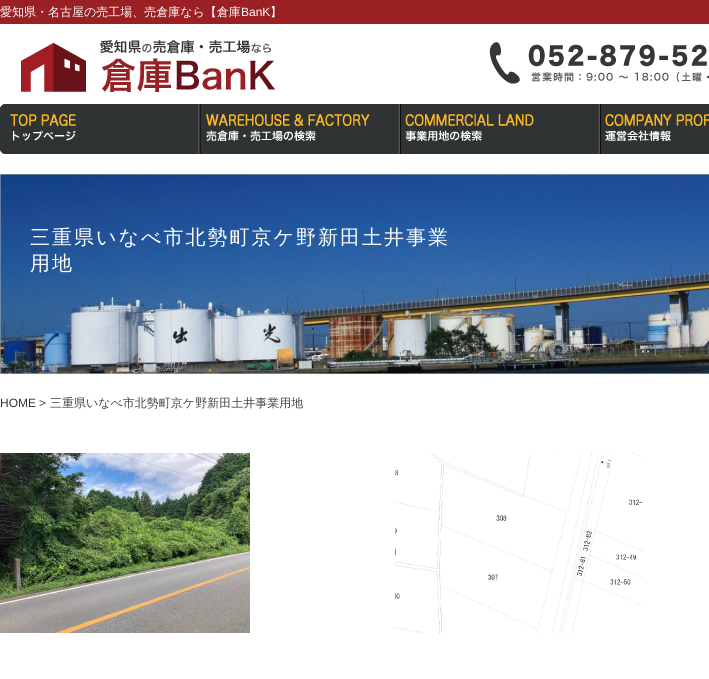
#include <cairo/cairo.h>
#include <math.h>
#include <stddef.h>


static void draw_spaced(cairo_t *cr, double x, double y, const char *s, double letter, double word) {
  cairo_move_to(cr, x, y);
  while (*s) {
    char ch[5] = {0};
    int n = 0;
    do ch[n++] = *s++; while ((*s & 0xC0) == 0x80);
    cairo_show_text(cr, ch);
    cairo_rel_move_to(cr, letter + word * (*ch == ' '), 0);
  }
}

static void draw_image(cairo_t *cr, const char *path, double x, double y, double w, double h) {
  cairo_surface_t *image = cairo_image_surface_create_from_png(path);
  cairo_save(cr);
  cairo_set_source_surface(cr, image, x, y);
  cairo_rectangle(cr, x, y, w, h);
  cairo_fill(cr);
  cairo_restore(cr);
  cairo_surface_destroy(image);
}

static void draw(cairo_t *cr) {
  cairo_set_source_rgb(cr, 1, 1, 1);
  cairo_paint(cr);
  cairo_set_source_rgb(cr, 154 / 255.0, 32 / 255.0, 36 / 255.0);
  cairo_rectangle(cr, 0, 0, 709, 24);
  cairo_fill(cr);
  draw_image(cr, "images/1.png", 21, 40, 255, 52);
  draw_image(cr, "images/2.png", 489, 42, 220, 42);
  draw_image(cr, "images/3.png", 0, 104, 709, 50);
  draw_image(cr, "images/4.png", 0, 104, 5, 50);
  draw_image(cr, "images/5.png", 0, 174, 709, 200);
  draw_image(cr, "images/6.png", 0, 453, 250, 180);
  draw_image(cr, "images/7.png", 394, 453, 249, 180);
  cairo_select_font_face(cr, "WenQuanYi Zen Hei Medium", CAIRO_FONT_SLANT_NORMAL, CAIRO_FONT_WEIGHT_NORMAL);
  cairo_set_font_size(cr, 12);
  cairo_set_source_rgb(cr, 1, 1, 1);
  cairo_move_to(cr, 0, 16);
  cairo_show_text(cr, "愛知県・名古屋の売工場、売倉庫なら【倉庫");
  cairo_select_font_face(cr, "Liberation Sans", CAIRO_FONT_SLANT_NORMAL, CAIRO_FONT_WEIGHT_NORMAL);
  cairo_move_to(cr, 241, 16);
  cairo_show_text(cr, "BanK");
  cairo_select_font_face(cr, "WenQuanYi Zen Hei Medium", CAIRO_FONT_SLANT_NORMAL, CAIRO_FONT_WEIGHT_NORMAL);
  cairo_move_to(cr, 270, 16);
  cairo_show_text(cr, "】");
  cairo_set_font_size(cr, 20);
  draw_spaced(cr, 30, 244, "三重県いなべ市北勢町京ケ野新田土井事業", 2, 0);
  draw_spaced(cr, 30, 270, "用地", 2, 0);
  cairo_select_font_face(cr, "Liberation Sans", CAIRO_FONT_SLANT_NORMAL, CAIRO_FONT_WEIGHT_NORMAL);
  cairo_set_font_size(cr, 12);
  cairo_set_source_rgb(cr, 51 / 255.0, 51 / 255.0, 51 / 255.0);
  cairo_move_to(cr, 0, 407);
  cairo_show_text(cr, "HOME");
  cairo_set_source_rgb(cr, 69 / 255.0, 69 / 255.0, 69 / 255.0);
  cairo_move_to(cr, 39, 407);
  cairo_show_text(cr, ">");
  cairo_select_font_face(cr, "WenQuanYi Zen Hei Medium", CAIRO_FONT_SLANT_NORMAL, CAIRO_FONT_WEIGHT_NORMAL);
  cairo_move_to(cr, 50, 407);
  cairo_show_text(cr, "三重県いなべ市北勢町京ケ野新田土井事業用地");
}

int main(void) {
  cairo_surface_t *surface = cairo_image_surface_create(CAIRO_FORMAT_RGB24, 709, 679);
  cairo_t *cr = cairo_create(surface);
  cairo_font_options_t *options = cairo_font_options_create();
  cairo_font_options_set_hint_metrics(options, CAIRO_HINT_METRICS_OFF);
  cairo_font_options_set_hint_style(options, CAIRO_HINT_STYLE_NONE);
  cairo_set_font_options(cr, options);
  cairo_set_miter_limit(cr, 4);
  draw(cr);
  cairo_surface_write_to_png(surface, "out.png");
  cairo_font_options_destroy(options);
  cairo_destroy(cr);
  cairo_surface_destroy(surface);
  return 0;
}
